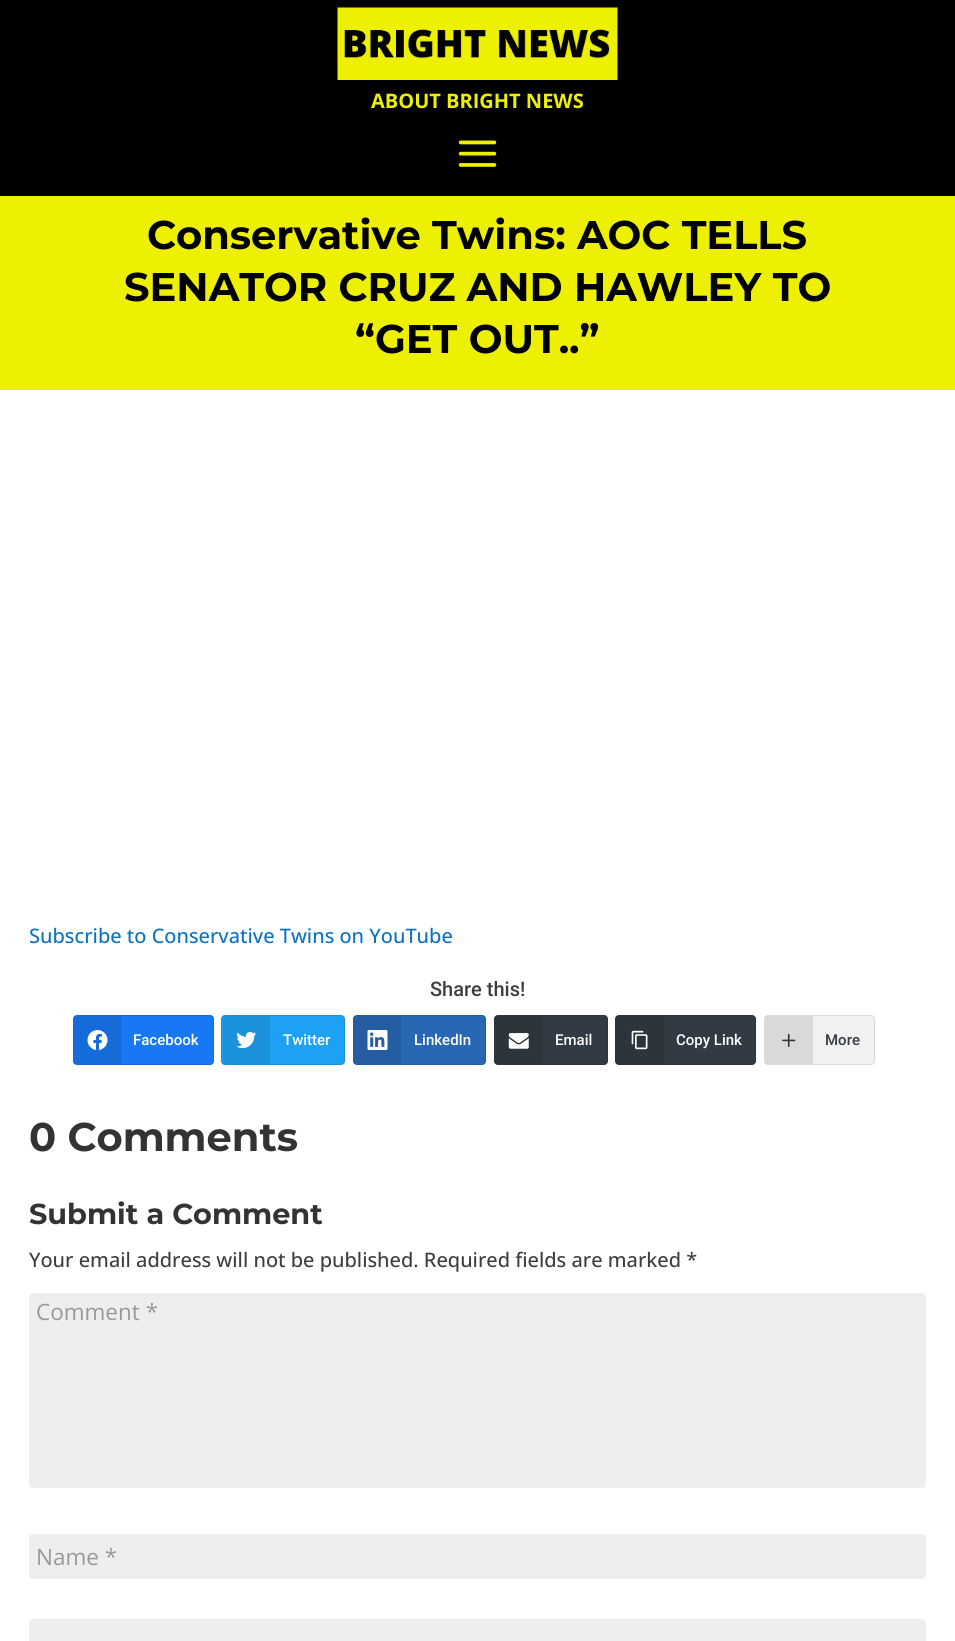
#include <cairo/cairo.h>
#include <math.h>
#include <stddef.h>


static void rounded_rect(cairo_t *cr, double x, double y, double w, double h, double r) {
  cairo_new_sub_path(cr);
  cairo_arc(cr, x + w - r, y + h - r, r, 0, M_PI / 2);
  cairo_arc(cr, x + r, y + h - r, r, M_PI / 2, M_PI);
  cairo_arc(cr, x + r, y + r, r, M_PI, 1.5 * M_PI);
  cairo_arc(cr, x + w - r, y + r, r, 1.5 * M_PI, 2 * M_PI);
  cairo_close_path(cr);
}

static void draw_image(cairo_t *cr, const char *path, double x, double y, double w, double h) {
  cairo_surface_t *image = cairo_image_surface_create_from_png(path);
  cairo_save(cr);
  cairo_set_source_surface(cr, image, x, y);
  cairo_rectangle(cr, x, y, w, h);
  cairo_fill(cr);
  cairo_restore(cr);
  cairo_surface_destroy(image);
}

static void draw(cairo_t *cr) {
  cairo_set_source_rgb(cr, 1, 1, 1);
  cairo_paint(cr);
  cairo_set_source_rgb(cr, 0, 0, 0);
  cairo_rectangle(cr, 0, 0, 955, 196);
  cairo_fill(cr);
  draw_image(cr, "images/1.png", 337, 7, 281, 73);
  draw_image(cr, "images/2.png", 458, 140, 39, 27);
  cairo_set_source_rgb(cr, 237 / 255.0, 240 / 255.0, 0);
  cairo_rectangle(cr, 0, 196, 955, 194);
  cairo_fill(cr);
  cairo_set_source_rgb(cr, 24 / 255.0, 119 / 255.0, 242 / 255.0);
  rounded_rect(cr, 73, 1015, 141, 50, 4);
  cairo_fill(cr);
  rounded_rect(cr, 73.5, 1015.5, 140, 49, 3.5);
  cairo_set_source_rgba(cr, 0, 0, 0, 0.1);
  cairo_set_line_width(cr, 1);
  cairo_stroke(cr);
  cairo_new_path(cr);
  cairo_move_to(cr, 76.5, 1016);
  cairo_line_to(cr, 121, 1016);
  cairo_line_to(cr, 121, 1064);
  cairo_line_to(cr, 76.5, 1064);
  cairo_curve_to(cr, 75, 1064, 74, 1063, 74, 1061.5);
  cairo_line_to(cr, 74, 1018.5);
  cairo_curve_to(cr, 74, 1017, 75, 1016, 76.5, 1016);
  cairo_close_path(cr);
  cairo_fill(cr);
  draw_image(cr, "images/3.png", 87, 1030, 21, 20);
  cairo_set_source_rgb(cr, 29 / 255.0, 161 / 255.0, 242 / 255.0);
  rounded_rect(cr, 221, 1015, 124, 50, 4);
  cairo_fill(cr);
  rounded_rect(cr, 221.5, 1015.5, 123, 49, 3.5);
  cairo_set_source_rgba(cr, 0, 0, 0, 0.1);
  cairo_stroke(cr);
  cairo_set_source_rgb(cr, 26 / 255.0, 145 / 255.0, 218 / 255.0);
  cairo_new_path(cr);
  cairo_move_to(cr, 225.5, 1016);
  cairo_line_to(cr, 270, 1016);
  cairo_line_to(cr, 270, 1064);
  cairo_line_to(cr, 225.5, 1064);
  cairo_curve_to(cr, 224, 1064, 223, 1063, 223, 1061.5);
  cairo_line_to(cr, 223, 1018.5);
  cairo_curve_to(cr, 223, 1017, 224, 1016, 225.5, 1016);
  cairo_close_path(cr);
  cairo_fill(cr);
  draw_image(cr, "images/4.png", 236, 1031, 21, 18);
  cairo_set_source_rgb(cr, 40 / 255.0, 103 / 255.0, 178 / 255.0);
  rounded_rect(cr, 353, 1015, 133, 50, 4);
  cairo_fill(cr);
  rounded_rect(cr, 353.5, 1015.5, 132, 49, 3.5);
  cairo_set_source_rgba(cr, 0, 0, 0, 0.1);
  cairo_stroke(cr);
  cairo_new_path(cr);
  cairo_move_to(cr, 356.5, 1016);
  cairo_line_to(cr, 401, 1016);
  cairo_line_to(cr, 401, 1064);
  cairo_line_to(cr, 356.5, 1064);
  cairo_curve_to(cr, 355, 1064, 354, 1063, 354, 1061.5);
  cairo_line_to(cr, 354, 1018.5);
  cairo_curve_to(cr, 354, 1017, 355, 1016, 356.5, 1016);
  cairo_close_path(cr);
  cairo_fill(cr);
  draw_image(cr, "images/5.png", 367, 1030, 21, 20);
  cairo_set_source_rgb(cr, 50 / 255.0, 59 / 255.0, 67 / 255.0);
  rounded_rect(cr, 494, 1015, 114, 50, 4);
  cairo_fill(cr);
  rounded_rect(cr, 494.5, 1015.5, 113, 49, 3.5);
  cairo_set_source_rgba(cr, 0, 0, 0, 0.1);
  cairo_stroke(cr);
  cairo_new_path(cr);
  cairo_move_to(cr, 497.5, 1016);
  cairo_line_to(cr, 543, 1016);
  cairo_line_to(cr, 543, 1064);
  cairo_line_to(cr, 497.5, 1064);
  cairo_curve_to(cr, 496, 1064, 495, 1063, 495, 1061.5);
  cairo_line_to(cr, 495, 1018.5);
  cairo_curve_to(cr, 495, 1017, 496, 1016, 497.5, 1016);
  cairo_close_path(cr);
  cairo_fill(cr);
  draw_image(cr, "images/6.png", 508, 1033, 21, 16);
  cairo_set_source_rgb(cr, 50 / 255.0, 59 / 255.0, 67 / 255.0);
  rounded_rect(cr, 615, 1015, 141, 50, 4);
  cairo_fill(cr);
  rounded_rect(cr, 615.5, 1015.5, 140, 49, 3.5);
  cairo_set_source_rgba(cr, 0, 0, 0, 0.1);
  cairo_stroke(cr);
  cairo_new_path(cr);
  cairo_move_to(cr, 618.5, 1016);
  cairo_line_to(cr, 664, 1016);
  cairo_line_to(cr, 664, 1064);
  cairo_line_to(cr, 618.5, 1064);
  cairo_curve_to(cr, 617, 1064, 616, 1063, 616, 1061.5);
  cairo_line_to(cr, 616, 1018.5);
  cairo_curve_to(cr, 616, 1017, 617, 1016, 618.5, 1016);
  cairo_close_path(cr);
  cairo_fill(cr);
  draw_image(cr, "images/7.png", 631, 1030, 17, 20);
  cairo_set_source_rgb(cr, 241 / 255.0, 241 / 255.0, 241 / 255.0);
  rounded_rect(cr, 764, 1015, 111, 50, 4);
  cairo_fill(cr);
  rounded_rect(cr, 764.5, 1015.5, 110, 49, 3.5);
  cairo_set_source_rgba(cr, 0, 0, 0, 0.1);
  cairo_stroke(cr);
  cairo_new_path(cr);
  cairo_move_to(cr, 767.5, 1016);
  cairo_line_to(cr, 813, 1016);
  cairo_line_to(cr, 813, 1064);
  cairo_line_to(cr, 767.5, 1064);
  cairo_curve_to(cr, 766, 1064, 765, 1063, 765, 1061.5);
  cairo_line_to(cr, 765, 1018.5);
  cairo_curve_to(cr, 765, 1017, 766, 1016, 767.5, 1016);
  cairo_close_path(cr);
  cairo_fill(cr);
  draw_image(cr, "images/8.png", 782, 1033, 14, 14);
  cairo_set_source_rgb(cr, 238 / 255.0, 238 / 255.0, 238 / 255.0);
  rounded_rect(cr, 29, 1293, 897, 195, 4);
  cairo_fill(cr);
  rounded_rect(cr, 29, 1534, 897, 45, 4);
  cairo_fill(cr);
  rounded_rect(cr, 29, 1619, 897, 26, 4);
  cairo_fill(cr);
  cairo_select_font_face(cr, "Open Sans", CAIRO_FONT_SLANT_NORMAL, CAIRO_FONT_WEIGHT_BOLD);
  cairo_set_font_size(cr, 20);
  cairo_set_source_rgb(cr, 237 / 255.0, 240 / 255.0, 0);
  cairo_move_to(cr, 371, 108);
  cairo_show_text(cr, "ABOUT BRIGHT NEWS");
  cairo_select_font_face(cr, "Montserrat", CAIRO_FONT_SLANT_NORMAL, CAIRO_FONT_WEIGHT_BOLD);
  cairo_set_font_size(cr, 40);
  cairo_set_source_rgb(cr, 0, 0, 0);
  cairo_move_to(cr, 147, 249);
  cairo_show_text(cr, "Conservative Twins: AOC TELLS");
  cairo_move_to(cr, 124, 301);
  cairo_show_text(cr, "SENATOR CRUZ AND HAWLEY TO");
  cairo_move_to(cr, 355, 353);
  cairo_show_text(cr, "“GET OUT..”");
  cairo_select_font_face(cr, "Open Sans Medium", CAIRO_FONT_SLANT_NORMAL, CAIRO_FONT_WEIGHT_NORMAL);
  cairo_set_font_size(cr, 20);
  cairo_set_source_rgb(cr, 12 / 255.0, 113 / 255.0, 195 / 255.0);
  cairo_move_to(cr, 29, 943);
  cairo_show_text(cr, "Subscribe to Conservative Twins on YouTube");
  cairo_select_font_face(cr, "Roboto Medium", CAIRO_FONT_SLANT_NORMAL, CAIRO_FONT_WEIGHT_NORMAL);
  cairo_set_source_rgb(cr, 61 / 255.0, 61 / 255.0, 61 / 255.0);
  cairo_move_to(cr, 430, 996);
  cairo_show_text(cr, "Share this!");
  cairo_set_font_size(cr, 15);
  cairo_set_source_rgb(cr, 1, 1, 1);
  cairo_move_to(cr, 133, 1045);
  cairo_show_text(cr, "Facebook");
  cairo_move_to(cr, 283, 1045);
  cairo_show_text(cr, "Twitter");
  cairo_move_to(cr, 414, 1045);
  cairo_show_text(cr, "LinkedIn");
  cairo_move_to(cr, 555, 1045);
  cairo_show_text(cr, "Email");
  cairo_move_to(cr, 676, 1045);
  cairo_show_text(cr, "Copy Link");
  cairo_set_source_rgb(cr, 50 / 255.0, 59 / 255.0, 67 / 255.0);
  cairo_move_to(cr, 825, 1045);
  cairo_show_text(cr, "More");
  cairo_select_font_face(cr, "Montserrat", CAIRO_FONT_SLANT_NORMAL, CAIRO_FONT_WEIGHT_BOLD);
  cairo_set_font_size(cr, 40);
  cairo_set_source_rgb(cr, 51 / 255.0, 51 / 255.0, 51 / 255.0);
  cairo_move_to(cr, 29, 1151);
  cairo_show_text(cr, "0 Comments");
  cairo_set_font_size(cr, 28.75);
  cairo_move_to(cr, 29, 1224);
  cairo_show_text(cr, "Submit a Comment");
  cairo_select_font_face(cr, "Open Sans Medium", CAIRO_FONT_SLANT_NORMAL, CAIRO_FONT_WEIGHT_NORMAL);
  cairo_set_font_size(cr, 20);
  cairo_set_source_rgb(cr, 61 / 255.0, 61 / 255.0, 61 / 255.0);
  cairo_move_to(cr, 29, 1267);
  cairo_show_text(cr, "Your email address will not be published. Required fields are marked *");
  cairo_select_font_face(cr, "Open Sans", CAIRO_FONT_SLANT_NORMAL, CAIRO_FONT_WEIGHT_NORMAL);
  cairo_set_font_size(cr, 22.5);
  cairo_set_source_rgb(cr, 153 / 255.0, 153 / 255.0, 153 / 255.0);
  cairo_move_to(cr, 36, 1320);
  cairo_show_text(cr, "Comment *");
  cairo_move_to(cr, 36, 1565);
  cairo_show_text(cr, "Name *");
}

int main(void) {
  cairo_surface_t *surface = cairo_image_surface_create(CAIRO_FORMAT_RGB24, 955, 1641);
  cairo_t *cr = cairo_create(surface);
  cairo_font_options_t *options = cairo_font_options_create();
  cairo_font_options_set_hint_metrics(options, CAIRO_HINT_METRICS_OFF);
  cairo_font_options_set_hint_style(options, CAIRO_HINT_STYLE_NONE);
  cairo_set_font_options(cr, options);
  cairo_set_miter_limit(cr, 4);
  draw(cr);
  cairo_surface_write_to_png(surface, "out.png");
  cairo_font_options_destroy(options);
  cairo_destroy(cr);
  cairo_surface_destroy(surface);
  return 0;
}
